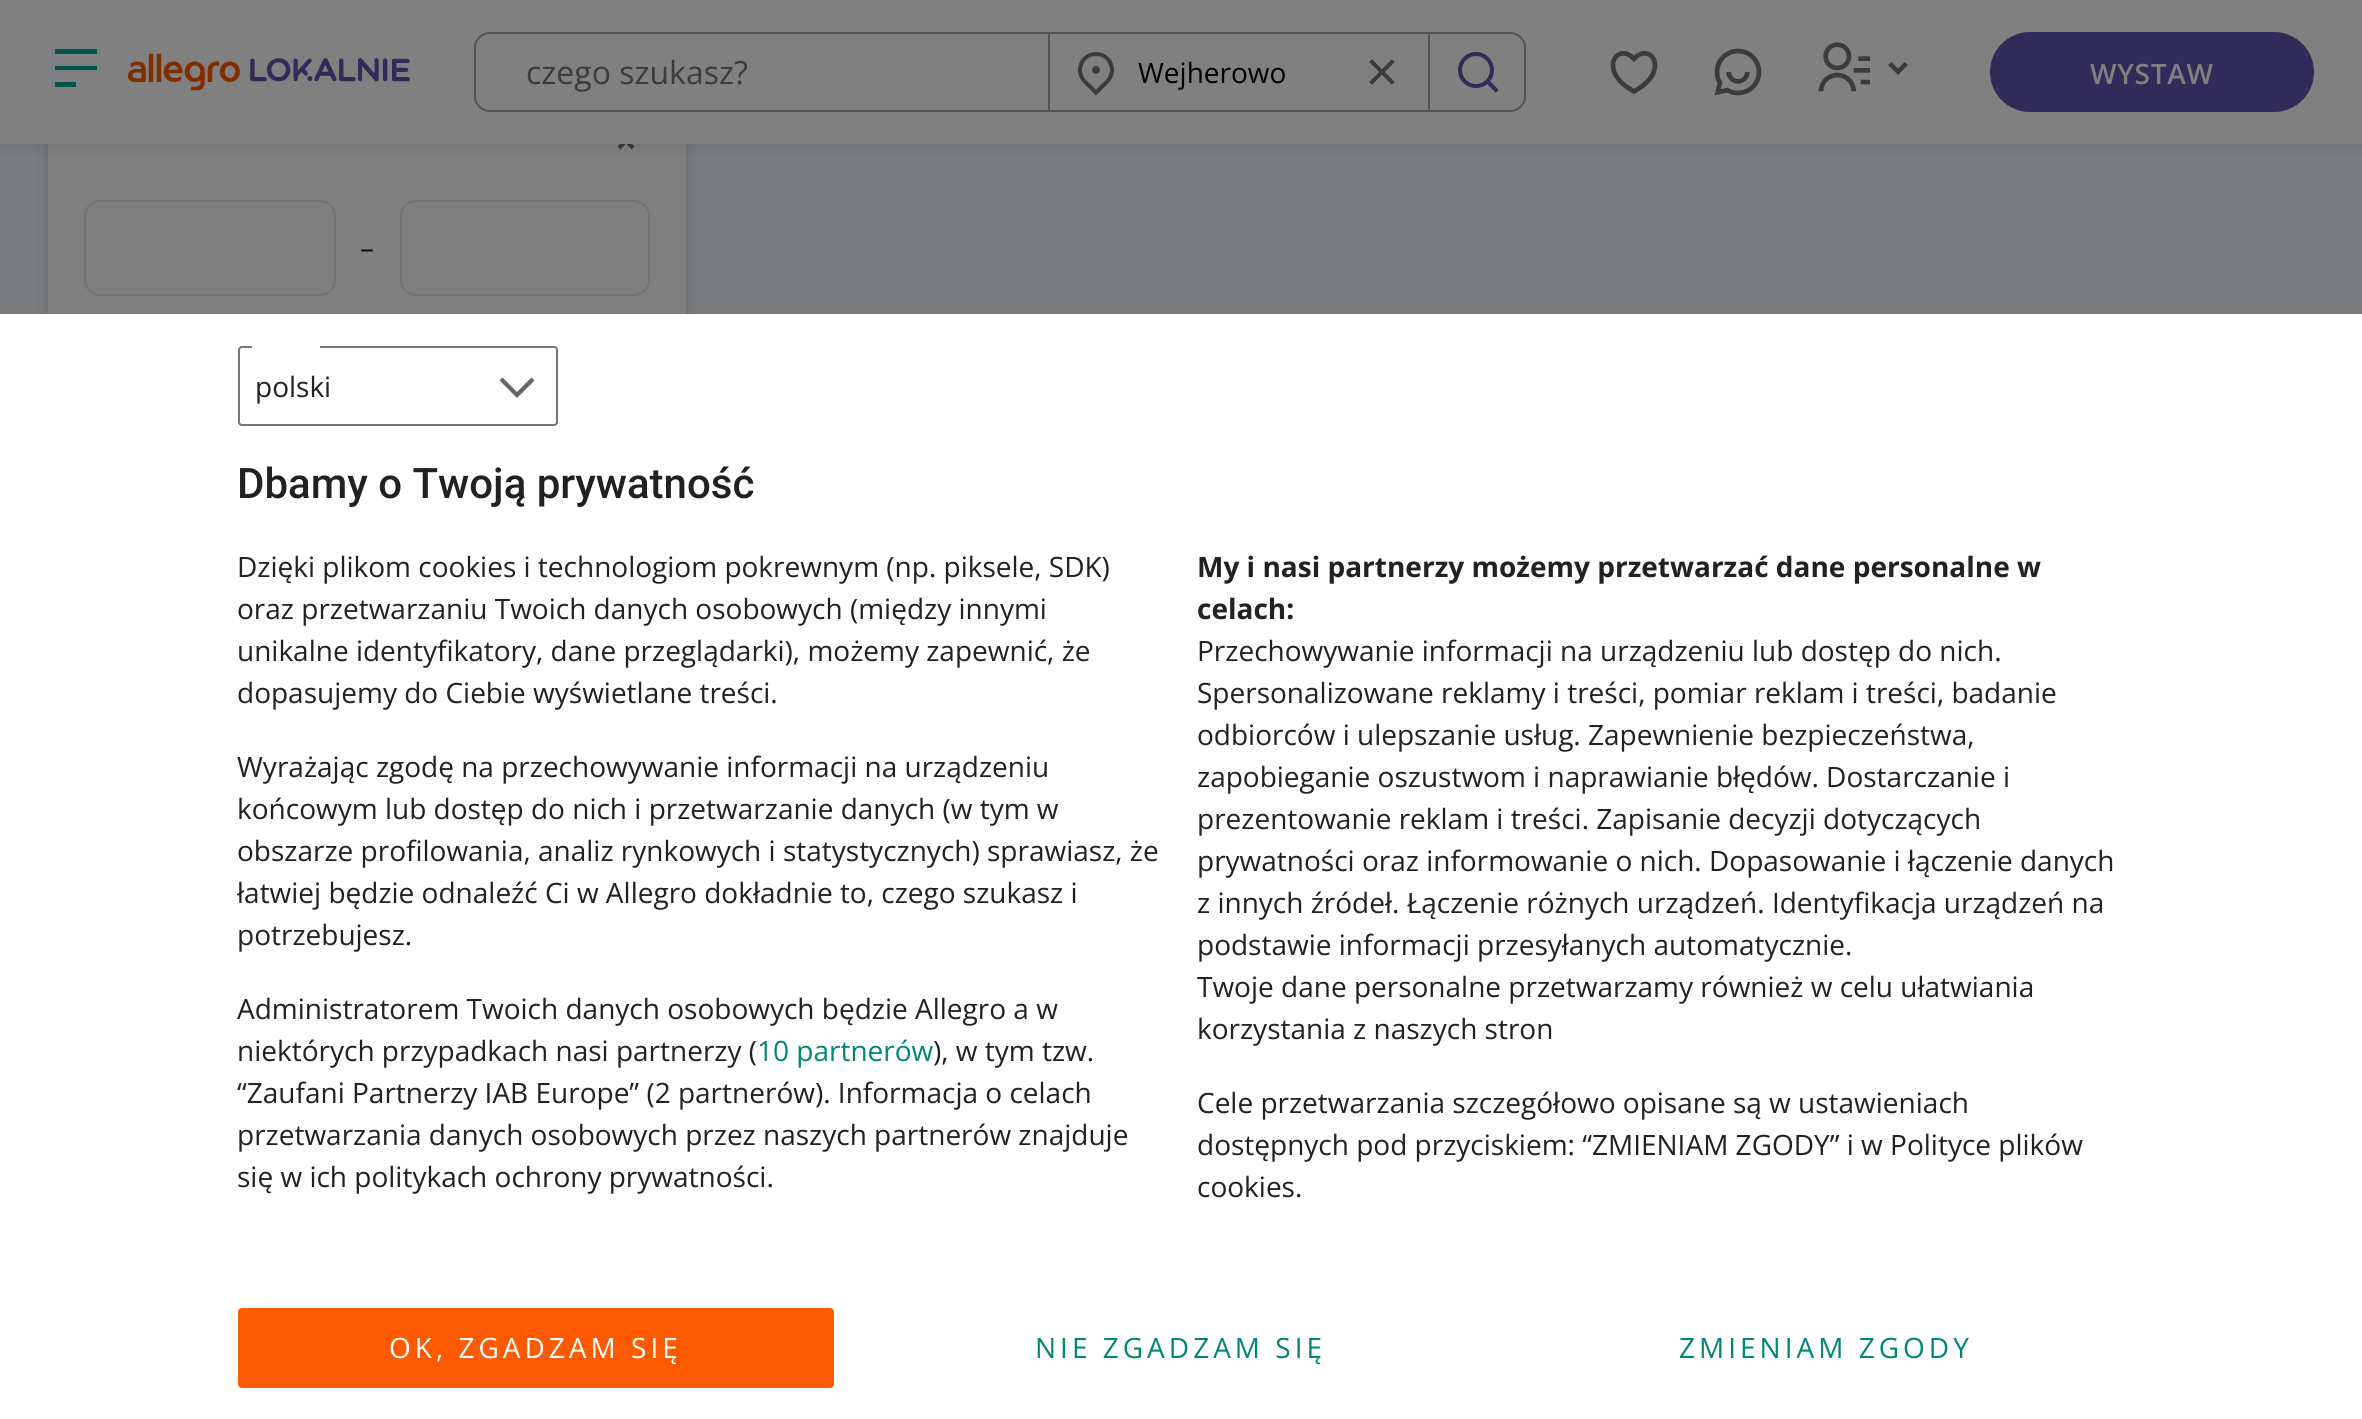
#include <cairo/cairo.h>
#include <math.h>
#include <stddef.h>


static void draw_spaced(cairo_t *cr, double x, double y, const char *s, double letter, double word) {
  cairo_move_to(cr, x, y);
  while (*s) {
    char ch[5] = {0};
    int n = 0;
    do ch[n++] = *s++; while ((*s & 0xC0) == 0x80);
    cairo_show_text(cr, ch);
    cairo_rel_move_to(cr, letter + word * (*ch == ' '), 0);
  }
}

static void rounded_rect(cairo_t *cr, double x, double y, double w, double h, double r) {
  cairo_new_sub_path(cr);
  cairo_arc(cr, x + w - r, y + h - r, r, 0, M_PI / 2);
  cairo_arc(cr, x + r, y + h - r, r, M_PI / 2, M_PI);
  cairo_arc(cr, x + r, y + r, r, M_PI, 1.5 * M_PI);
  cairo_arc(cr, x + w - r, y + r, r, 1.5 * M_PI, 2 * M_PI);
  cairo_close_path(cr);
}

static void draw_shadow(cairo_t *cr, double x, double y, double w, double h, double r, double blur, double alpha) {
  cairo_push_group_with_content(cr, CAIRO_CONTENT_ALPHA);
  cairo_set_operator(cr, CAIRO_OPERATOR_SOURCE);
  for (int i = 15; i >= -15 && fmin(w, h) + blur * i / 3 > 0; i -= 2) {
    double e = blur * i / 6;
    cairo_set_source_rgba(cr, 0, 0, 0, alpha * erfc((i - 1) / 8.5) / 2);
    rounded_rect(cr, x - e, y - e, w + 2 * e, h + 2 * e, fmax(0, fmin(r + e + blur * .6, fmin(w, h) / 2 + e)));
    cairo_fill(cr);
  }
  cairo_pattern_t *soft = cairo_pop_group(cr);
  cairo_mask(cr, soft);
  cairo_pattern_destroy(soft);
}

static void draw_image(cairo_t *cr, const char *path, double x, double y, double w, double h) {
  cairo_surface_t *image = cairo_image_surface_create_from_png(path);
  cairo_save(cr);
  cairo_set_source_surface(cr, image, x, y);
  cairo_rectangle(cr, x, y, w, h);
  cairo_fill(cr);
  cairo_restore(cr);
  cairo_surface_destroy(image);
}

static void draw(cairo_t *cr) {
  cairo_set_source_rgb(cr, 122 / 255.0, 124 / 255.0, 126 / 255.0);
  cairo_paint(cr);
  cairo_set_source_rgb(cr, 0, 0, 0);
  draw_shadow(cr, 48, -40, 638, 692, 16, 8, 0.16);
  cairo_set_source_rgb(cr, 128 / 255.0, 128 / 255.0, 128 / 255.0);
  cairo_rectangle(cr, 48, 144, 638, 170);
  cairo_fill(cr);
  cairo_set_source_rgb(cr, 59 / 255.0, 59 / 255.0, 59 / 255.0);
  cairo_new_path(cr);
  cairo_move_to(cr, 626, 143.5);
  cairo_line_to(cr, 620.5, 149.5);
  cairo_line_to(cr, 617.5, 146.5);
  cairo_line_to(cr, 626, 138);
  cairo_line_to(cr, 634.5, 146.5);
  cairo_line_to(cr, 631.5, 149.5);
  cairo_close_path(cr);
  cairo_fill(cr);
  cairo_set_source_rgb(cr, 0, 0, 0);
  draw_shadow(cr, 0, 4, 2362, 144, 0, 6, 0.1);
  cairo_set_source_rgb(cr, 128 / 255.0, 128 / 255.0, 128 / 255.0);
  cairo_rectangle(cr, 0, 0, 2362, 144);
  cairo_fill(cr);
  cairo_set_source_rgb(cr, 0, 84 / 255.0, 72 / 255.0);
  cairo_new_path(cr);
  cairo_move_to(cr, 97, 49);
  cairo_line_to(cr, 55, 49);
  cairo_line_to(cr, 55, 54);
  cairo_line_to(cr, 97, 54);
  cairo_close_path(cr);
  cairo_move_to(cr, 97, 66);
  cairo_line_to(cr, 55, 66);
  cairo_line_to(cr, 55, 70);
  cairo_line_to(cr, 97, 70);
  cairo_close_path(cr);
  cairo_move_to(cr, 76, 82);
  cairo_line_to(cr, 55, 82);
  cairo_line_to(cr, 55, 87);
  cairo_line_to(cr, 76, 87);
  cairo_close_path(cr);
  cairo_fill(cr);
  draw_image(cr, "images/1.png", 128, 53, 282, 38);
  cairo_rectangle(cr, 1049, 33, 380, 78);
  cairo_set_source_rgb(cr, 85 / 255.0, 85 / 255.0, 85 / 255.0);
  cairo_stroke(cr);
  draw_image(cr, "images/2.png", 1078, 52, 36, 44);
  draw_image(cr, "images/3.png", 1369, 59, 26, 26);
  cairo_set_fill_rule(cr, CAIRO_FILL_RULE_EVEN_ODD);
  cairo_new_path(cr);
  cairo_move_to(cr, 1430, 32);
  cairo_line_to(cr, 1510, 32);
  cairo_curve_to(cr, 1519, 32, 1526, 39, 1526, 48);
  cairo_line_to(cr, 1526, 96);
  cairo_curve_to(cr, 1526, 105, 1519, 112, 1510, 112);
  cairo_line_to(cr, 1430, 112);
  cairo_close_path(cr);
  cairo_move_to(cr, 1430, 34);
  cairo_line_to(cr, 1510, 34);
  cairo_curve_to(cr, 1518, 34, 1524, 40, 1524, 48);
  cairo_line_to(cr, 1524, 96);
  cairo_curve_to(cr, 1524, 104, 1518, 110, 1510, 110);
  cairo_line_to(cr, 1430, 110);
  cairo_close_path(cr);
  cairo_fill(cr);
  draw_image(cr, "images/4.png", 1458, 52, 41, 41);
  draw_image(cr, "images/5.png", 1610, 51, 48, 43);
  draw_image(cr, "images/6.png", 1714, 48, 48, 48);
  draw_image(cr, "images/7.png", 1818, 42, 52, 50);
  cairo_set_source_rgb(cr, 59 / 255.0, 59 / 255.0, 59 / 255.0);
  cairo_set_fill_rule(cr, CAIRO_FILL_RULE_WINDING);
  cairo_new_path(cr);
  cairo_move_to(cr, 1898, 75);
  cairo_line_to(cr, 1888, 65);
  cairo_line_to(cr, 1891.5, 62);
  cairo_line_to(cr, 1898, 68.5);
  cairo_line_to(cr, 1904.5, 62);
  cairo_line_to(cr, 1908, 65);
  cairo_close_path(cr);
  cairo_fill(cr);
  cairo_set_source_rgb(cr, 49 / 255.0, 43 / 255.0, 89 / 255.0);
  rounded_rect(cr, 1990, 32, 324, 80, 40);
  cairo_fill(cr);
  rounded_rect(cr, 85, 201, 250, 94, 15);
  cairo_set_source_rgb(cr, 116 / 255.0, 116 / 255.0, 116 / 255.0);
  cairo_stroke(cr);
  rounded_rect(cr, 401, 201, 248, 94, 15);
  cairo_stroke(cr);
  cairo_set_source_rgb(cr, 1, 1, 1);
  cairo_rectangle(cr, 0, 314, 2362, 1105);
  cairo_fill(cr);
  rounded_rect(cr, 239, 347, 318, 78, 3);
  cairo_set_source_rgb(cr, 117 / 255.0, 117 / 255.0, 117 / 255.0);
  cairo_stroke(cr);
  cairo_set_source_rgb(cr, 1, 1, 1);
  cairo_rectangle(cr, 252, 346, 68, 2);
  cairo_fill(cr);
  cairo_set_source_rgb(cr, 101 / 255.0, 101 / 255.0, 101 / 255.0);
  cairo_new_path(cr);
  cairo_move_to(cr, 499.5, 380.5);
  cairo_line_to(cr, 502.5, 377.5);
  cairo_line_to(cr, 517, 392);
  cairo_line_to(cr, 531.5, 377.5);
  cairo_line_to(cr, 534.5, 380.5);
  cairo_line_to(cr, 517, 398);
  cairo_close_path(cr);
  cairo_fill(cr);
  cairo_set_source_rgb(cr, 1, 90 / 255.0, 0);
  rounded_rect(cr, 238, 1308, 596, 80, 4);
  cairo_fill(cr);
  cairo_select_font_face(cr, "Open Sans", CAIRO_FONT_SLANT_NORMAL, CAIRO_FONT_WEIGHT_NORMAL);
  cairo_set_font_size(cr, 32);
  cairo_set_source_rgb(cr, 59 / 255.0, 59 / 255.0, 59 / 255.0);
  cairo_move_to(cr, 526, 84);
  cairo_show_text(cr, "czego szukasz?");
  cairo_set_source_rgb(cr, 85 / 255.0, 85 / 255.0, 85 / 255.0);
  cairo_set_fill_rule(cr, CAIRO_FILL_RULE_EVEN_ODD);
  cairo_new_path(cr);
  cairo_move_to(cr, 490, 32);
  cairo_line_to(cr, 1048, 32);
  cairo_line_to(cr, 1048, 112);
  cairo_line_to(cr, 490, 112);
  cairo_curve_to(cr, 481, 112, 474, 105, 474, 96);
  cairo_line_to(cr, 474, 48);
  cairo_curve_to(cr, 474, 39, 481, 32, 490, 32);
  cairo_close_path(cr);
  cairo_move_to(cr, 490, 34);
  cairo_line_to(cr, 1048, 34);
  cairo_line_to(cr, 1048, 110);
  cairo_line_to(cr, 490, 110);
  cairo_curve_to(cr, 482, 110, 476, 104, 476, 96);
  cairo_line_to(cr, 476, 48);
  cairo_curve_to(cr, 476, 40, 482, 34, 490, 34);
  cairo_close_path(cr);
  cairo_fill(cr);
  cairo_set_font_size(cr, 28);
  cairo_set_source_rgb(cr, 0, 0, 0);
  cairo_move_to(cr, 1138, 83);
  cairo_show_text(cr, "Wejherowo");
  cairo_select_font_face(cr, "Open Sans SemiBold", CAIRO_FONT_SLANT_NORMAL, CAIRO_FONT_WEIGHT_NORMAL);
  cairo_set_source_rgb(cr, 128 / 255.0, 128 / 255.0, 128 / 255.0);
  draw_spaced(cr, 2090, 84, "WYSTAW", 0.75, 0);
  cairo_select_font_face(cr, "Open Sans", CAIRO_FONT_SLANT_NORMAL, CAIRO_FONT_WEIGHT_NORMAL);
  cairo_set_source_rgb(cr, 17 / 255.0, 17 / 255.0, 17 / 255.0);
  cairo_move_to(cr, 360, 258);
  cairo_show_text(cr, "–");
  cairo_set_source_rgb(cr, 33 / 255.0, 33 / 255.0, 33 / 255.0);
  cairo_move_to(cr, 255, 397);
  cairo_show_text(cr, "polski");
  cairo_select_font_face(cr, "Roboto Medium", CAIRO_FONT_SLANT_NORMAL, CAIRO_FONT_WEIGHT_NORMAL);
  cairo_set_font_size(cr, 42);
  cairo_move_to(cr, 237, 498);
  cairo_show_text(cr, "Dbamy o Twoją prywatność");
  cairo_select_font_face(cr, "Open Sans", CAIRO_FONT_SLANT_NORMAL, CAIRO_FONT_WEIGHT_NORMAL);
  cairo_set_font_size(cr, 28);
  cairo_move_to(cr, 237, 577);
  cairo_show_text(cr, "Dzięki plikom cookies i technologiom pokrewnym (np. piksele, SDK)");
  cairo_move_to(cr, 237, 619);
  cairo_show_text(cr, "oraz przetwarzaniu Twoich danych osobowych (między innymi");
  cairo_move_to(cr, 237, 661);
  cairo_show_text(cr, "unikalne identyfikatory, dane przeglądarki), możemy zapewnić, że");
  cairo_move_to(cr, 237, 703);
  cairo_show_text(cr, "dopasujemy do Ciebie wyświetlane treści.");
  cairo_move_to(cr, 237, 777);
  cairo_show_text(cr, "Wyrażając zgodę na przechowywanie informacji na urządzeniu");
  cairo_move_to(cr, 237, 819);
  cairo_show_text(cr, "końcowym lub dostęp do nich i przetwarzanie danych (w tym w");
  cairo_move_to(cr, 237, 861);
  cairo_show_text(cr, "obszarze profilowania, analiz rynkowych i statystycznych) sprawiasz, że");
  cairo_move_to(cr, 237, 903);
  cairo_show_text(cr, "łatwiej będzie odnaleźć Ci w Allegro dokładnie to, czego szukasz i");
  cairo_move_to(cr, 237, 945);
  cairo_show_text(cr, "potrzebujesz.");
  cairo_move_to(cr, 237, 1019);
  cairo_show_text(cr, "Administratorem Twoich danych osobowych będzie Allegro a w");
  cairo_move_to(cr, 237, 1061);
  cairo_show_text(cr, "niektórych przypadkach nasi partnerzy (");
  cairo_set_source_rgb(cr, 0, 134 / 255.0, 115 / 255.0);
  cairo_move_to(cr, 757, 1061);
  cairo_show_text(cr, "10 partnerów");
  cairo_set_source_rgb(cr, 33 / 255.0, 33 / 255.0, 33 / 255.0);
  cairo_move_to(cr, 933, 1061);
  cairo_show_text(cr, "), w tym tzw.");
  cairo_move_to(cr, 237, 1103);
  cairo_show_text(cr, "“Zaufani Partnerzy IAB Europe” (2 partnerów). Informacja o celach");
  cairo_move_to(cr, 237, 1145);
  cairo_show_text(cr, "przetwarzania danych osobowych przez naszych partnerów znajduje");
  cairo_move_to(cr, 237, 1187);
  cairo_show_text(cr, "się w ich politykach ochrony prywatności.");
  cairo_select_font_face(cr, "Open Sans", CAIRO_FONT_SLANT_NORMAL, CAIRO_FONT_WEIGHT_BOLD);
  cairo_move_to(cr, 1197, 577);
  cairo_show_text(cr, "My i nasi partnerzy możemy przetwarzać dane personalne w");
  cairo_move_to(cr, 1197, 619);
  cairo_show_text(cr, "celach:");
  cairo_select_font_face(cr, "Open Sans", CAIRO_FONT_SLANT_NORMAL, CAIRO_FONT_WEIGHT_NORMAL);
  cairo_move_to(cr, 1197, 661);
  cairo_show_text(cr, "Przechowywanie informacji na urządzeniu lub dostęp do nich.");
  cairo_move_to(cr, 1197, 703);
  cairo_show_text(cr, "Spersonalizowane reklamy i treści, pomiar reklam i treści, badanie");
  cairo_move_to(cr, 1197, 745);
  cairo_show_text(cr, "odbiorców i ulepszanie usług. Zapewnienie bezpieczeństwa,");
  cairo_move_to(cr, 1197, 787);
  cairo_show_text(cr, "zapobieganie oszustwom i naprawianie błędów. Dostarczanie i");
  cairo_move_to(cr, 1197, 829);
  cairo_show_text(cr, "prezentowanie reklam i treści. Zapisanie decyzji dotyczących");
  cairo_move_to(cr, 1197, 871);
  cairo_show_text(cr, "prywatności oraz informowanie o nich. Dopasowanie i łączenie danych");
  cairo_move_to(cr, 1197, 913);
  cairo_show_text(cr, "z innych źródeł. Łączenie różnych urządzeń. Identyfikacja urządzeń na");
  cairo_move_to(cr, 1197, 955);
  cairo_show_text(cr, "podstawie informacji przesyłanych automatycznie.");
  cairo_move_to(cr, 1197, 997);
  cairo_show_text(cr, "Twoje dane personalne przetwarzamy również w celu ułatwiania");
  cairo_move_to(cr, 1197, 1039);
  cairo_show_text(cr, "korzystania z naszych stron");
  cairo_move_to(cr, 1197, 1113);
  cairo_show_text(cr, "Cele przetwarzania szczegółowo opisane są w ustawieniach");
  cairo_move_to(cr, 1197, 1155);
  cairo_show_text(cr, "dostępnych pod przyciskiem: “ZMIENIAM ZGODY” i w Polityce plików");
  cairo_move_to(cr, 1197, 1197);
  cairo_show_text(cr, "cookies.");
  cairo_set_source_rgb(cr, 1, 1, 1);
  draw_spaced(cr, 389, 1358, "OK, ZGADZAM SIĘ", 4, 0);
  cairo_set_source_rgb(cr, 0, 134 / 255.0, 115 / 255.0);
  draw_spaced(cr, 1035, 1358, "NIE ZGADZAM SIĘ", 4, 0);
  draw_spaced(cr, 1679, 1358, "ZMIENIAM ZGODY", 4, 0);
}

int main(void) {
  cairo_surface_t *surface = cairo_image_surface_create(CAIRO_FORMAT_RGB24, 2362, 1419);
  cairo_t *cr = cairo_create(surface);
  cairo_font_options_t *options = cairo_font_options_create();
  cairo_font_options_set_hint_metrics(options, CAIRO_HINT_METRICS_OFF);
  cairo_font_options_set_hint_style(options, CAIRO_HINT_STYLE_NONE);
  cairo_set_font_options(cr, options);
  cairo_set_miter_limit(cr, 4);
  draw(cr);
  cairo_surface_write_to_png(surface, "out.png");
  cairo_font_options_destroy(options);
  cairo_destroy(cr);
  cairo_surface_destroy(surface);
  return 0;
}
